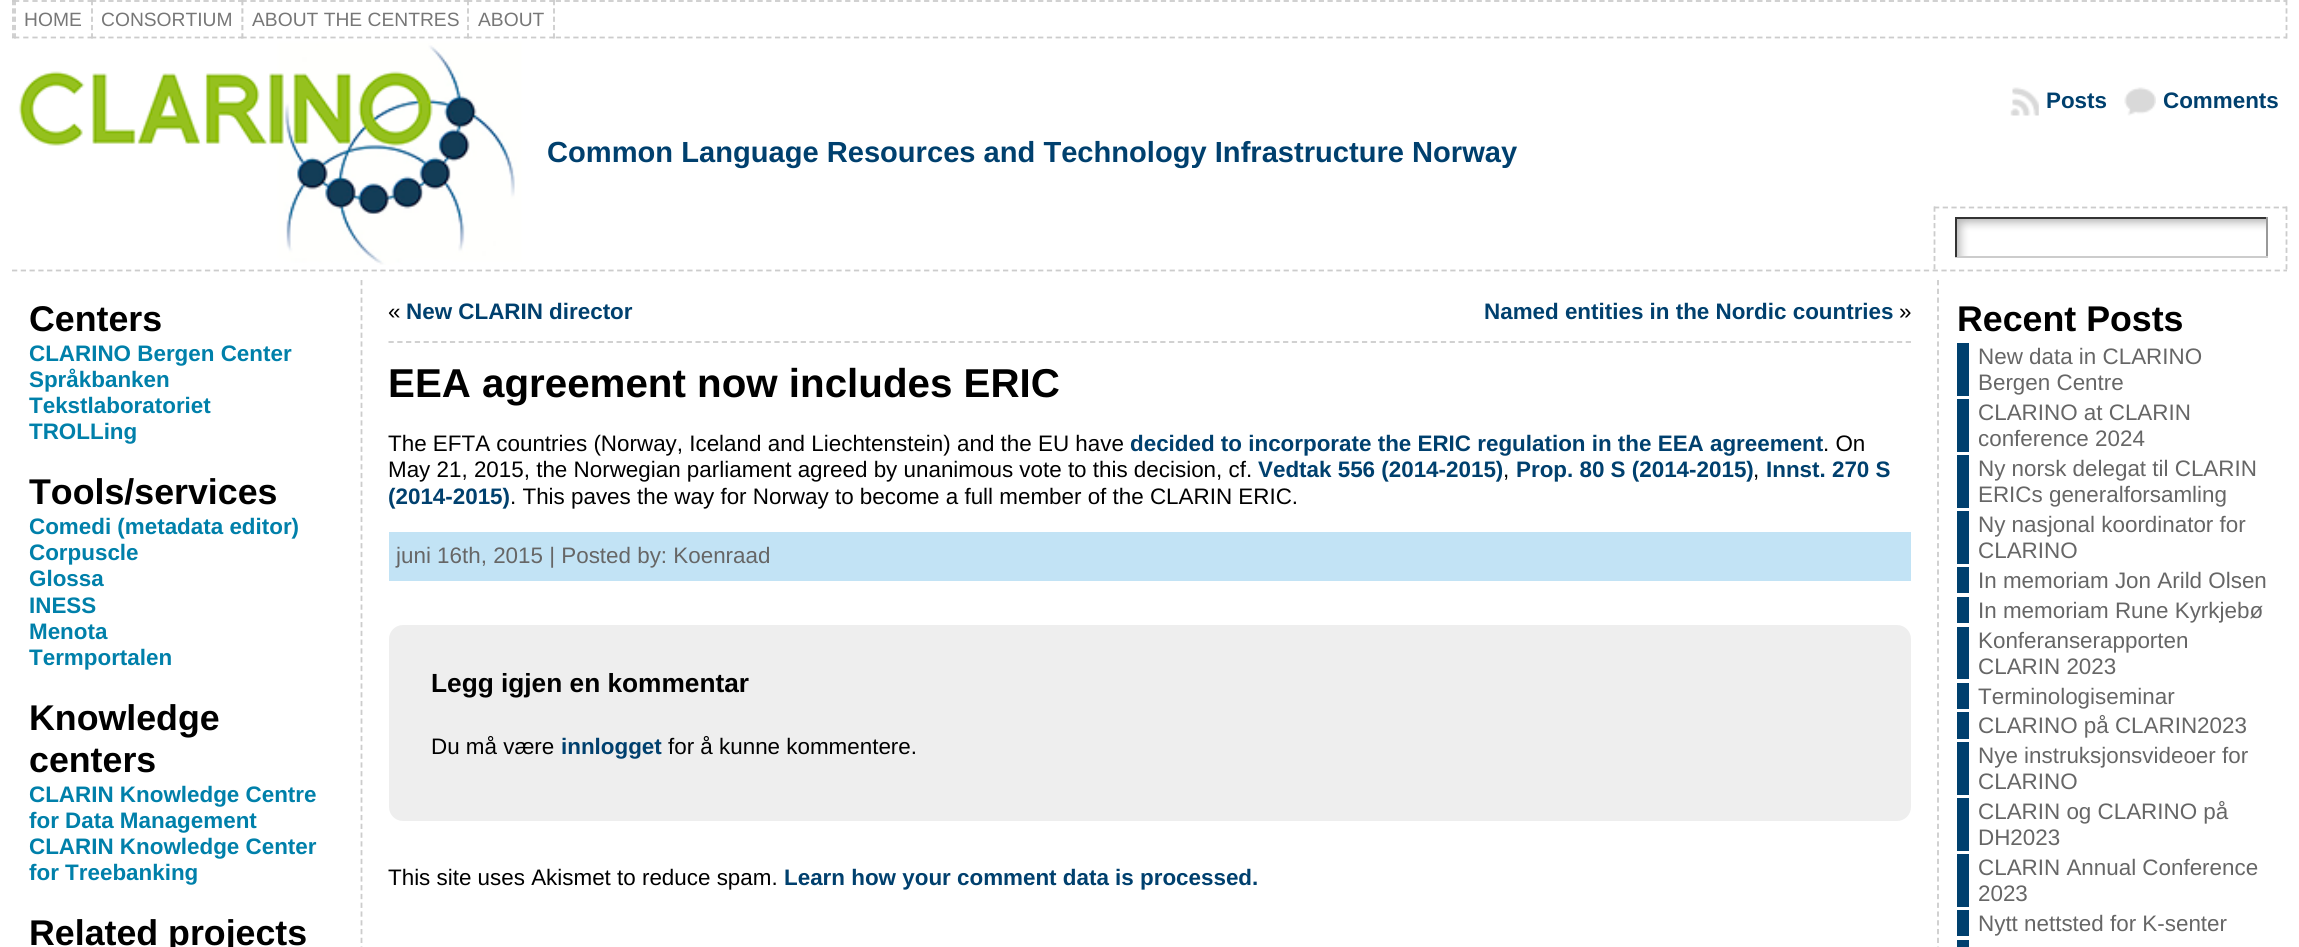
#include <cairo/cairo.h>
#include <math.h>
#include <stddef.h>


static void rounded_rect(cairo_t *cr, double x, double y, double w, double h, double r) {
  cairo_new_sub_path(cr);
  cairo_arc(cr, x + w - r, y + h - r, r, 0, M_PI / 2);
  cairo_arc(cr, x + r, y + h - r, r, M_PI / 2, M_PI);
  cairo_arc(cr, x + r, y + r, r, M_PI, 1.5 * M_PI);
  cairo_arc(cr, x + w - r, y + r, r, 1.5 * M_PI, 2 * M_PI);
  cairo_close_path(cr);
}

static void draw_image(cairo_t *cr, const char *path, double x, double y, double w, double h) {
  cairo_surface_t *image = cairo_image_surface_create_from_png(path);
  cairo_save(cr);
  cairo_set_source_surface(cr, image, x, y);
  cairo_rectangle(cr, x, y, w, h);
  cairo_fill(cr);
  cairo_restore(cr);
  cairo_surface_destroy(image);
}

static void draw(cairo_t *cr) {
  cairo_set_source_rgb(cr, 1, 1, 1);
  cairo_paint(cr);
  cairo_new_path(cr);
  cairo_move_to(cr, 12, 1);
  cairo_line_to(cr, 2287, 1);
  cairo_set_source_rgb(cr, 204 / 255.0, 204 / 255.0, 204 / 255.0);
  cairo_set_line_width(cr, 1.8);
  cairo_set_dash(cr, (double[]){5.25, 3.52}, 2, 0);
  cairo_stroke(cr);
  cairo_new_path(cr);
  cairo_move_to(cr, 2286.5, 0);
  cairo_line_to(cr, 2286.5, 38.5);
  cairo_set_dash(cr, (double[]){5.25, 3.06}, 2, 0);
  cairo_stroke(cr);
  cairo_new_path(cr);
  cairo_move_to(cr, 12, 37.5);
  cairo_line_to(cr, 2287, 37.5);
  cairo_set_dash(cr, (double[]){5.25, 3.52}, 2, 0);
  cairo_stroke(cr);
  cairo_new_path(cr);
  cairo_move_to(cr, 13, 0);
  cairo_line_to(cr, 13, 38.5);
  cairo_set_dash(cr, (double[]){5.25, 3.06}, 2, 0);
  cairo_stroke(cr);
  draw_image(cr, "images/1.png", 12, 38, 510, 227);
  cairo_set_source_rgb(cr, 1, 1, 1);
  cairo_rectangle(cr, 14, 0, 77, 39);
  cairo_fill(cr);
  cairo_new_path(cr);
  cairo_move_to(cr, 14, 1);
  cairo_line_to(cr, 93, 1);
  cairo_set_source_rgb(cr, 204 / 255.0, 204 / 255.0, 204 / 255.0);
  cairo_set_dash(cr, (double[]){5.25, 3.94}, 2, 0);
  cairo_stroke(cr);
  cairo_new_path(cr);
  cairo_move_to(cr, 14, 37.5);
  cairo_line_to(cr, 93, 37.5);
  cairo_stroke(cr);
  cairo_new_path(cr);
  cairo_move_to(cr, 15, 0);
  cairo_line_to(cr, 15, 38.5);
  cairo_set_dash(cr, (double[]){5.25, 3.06}, 2, 0);
  cairo_stroke(cr);
  cairo_set_source_rgb(cr, 1, 1, 1);
  cairo_rectangle(cr, 91, 0, 151, 39);
  cairo_fill(cr);
  cairo_new_path(cr);
  cairo_move_to(cr, 91, 1);
  cairo_line_to(cr, 243, 1);
  cairo_set_source_rgb(cr, 204 / 255.0, 204 / 255.0, 204 / 255.0);
  cairo_set_dash(cr, (double[]){5.25, 3.4}, 2, 0);
  cairo_stroke(cr);
  cairo_new_path(cr);
  cairo_move_to(cr, 242.5, 0);
  cairo_line_to(cr, 242.5, 38.5);
  cairo_set_dash(cr, (double[]){5.25, 3.06}, 2, 0);
  cairo_stroke(cr);
  cairo_new_path(cr);
  cairo_move_to(cr, 91, 37.5);
  cairo_line_to(cr, 243, 37.5);
  cairo_set_dash(cr, (double[]){5.25, 3.4}, 2, 0);
  cairo_stroke(cr);
  cairo_new_path(cr);
  cairo_move_to(cr, 92, 0);
  cairo_line_to(cr, 92, 38.5);
  cairo_set_dash(cr, (double[]){5.25, 3.06}, 2, 0);
  cairo_stroke(cr);
  cairo_set_source_rgb(cr, 1, 1, 1);
  cairo_rectangle(cr, 242, 0, 223, 39);
  cairo_fill(cr);
  cairo_new_path(cr);
  cairo_move_to(cr, 241.5, 1);
  cairo_line_to(cr, 469, 1);
  cairo_set_source_rgb(cr, 204 / 255.0, 204 / 255.0, 204 / 255.0);
  cairo_set_dash(cr, (double[]){5.25, 3.64}, 2, 0);
  cairo_stroke(cr);
  cairo_new_path(cr);
  cairo_move_to(cr, 241.5, 37.5);
  cairo_line_to(cr, 469, 37.5);
  cairo_stroke(cr);
  cairo_new_path(cr);
  cairo_move_to(cr, 242.5, 0);
  cairo_line_to(cr, 242.5, 38.5);
  cairo_set_dash(cr, (double[]){5.25, 3.06}, 2, 0);
  cairo_stroke(cr);
  cairo_set_source_rgb(cr, 1, 1, 1);
  cairo_rectangle(cr, 467, 0, 86, 39);
  cairo_fill(cr);
  cairo_new_path(cr);
  cairo_move_to(cr, 467, 1);
  cairo_line_to(cr, 555, 1);
  cairo_set_source_rgb(cr, 204 / 255.0, 204 / 255.0, 204 / 255.0);
  cairo_set_dash(cr, (double[]){5.25, 3.89}, 2, 0);
  cairo_stroke(cr);
  cairo_new_path(cr);
  cairo_move_to(cr, 554, 0);
  cairo_line_to(cr, 554, 38.5);
  cairo_set_dash(cr, (double[]){5.25, 3.06}, 2, 0);
  cairo_stroke(cr);
  cairo_new_path(cr);
  cairo_move_to(cr, 467, 37.5);
  cairo_line_to(cr, 555, 37.5);
  cairo_set_dash(cr, (double[]){5.25, 3.89}, 2, 0);
  cairo_stroke(cr);
  cairo_new_path(cr);
  cairo_move_to(cr, 468, 0);
  cairo_line_to(cr, 468, 38.5);
  cairo_set_dash(cr, (double[]){5.25, 3.06}, 2, 0);
  cairo_stroke(cr);
  draw_image(cr, "images/2.png", 2010, 87, 29, 29);
  draw_image(cr, "images/3.png", 2124, 87, 32, 29);
  cairo_new_path(cr);
  cairo_move_to(cr, 1934, 207.5);
  cairo_line_to(cr, 2287, 207.5);
  cairo_set_dash(cr, (double[]){5.25, 3.46}, 2, 0);
  cairo_stroke(cr);
  cairo_new_path(cr);
  cairo_move_to(cr, 2286.5, 206.5);
  cairo_line_to(cr, 2286.5, 269.5);
  cairo_set_dash(cr, (double[]){5.25, 2.99}, 2, 0);
  cairo_stroke(cr);
  cairo_new_path(cr);
  cairo_move_to(cr, 1934.5, 206.5);
  cairo_line_to(cr, 1934.5, 269.5);
  cairo_stroke(cr);
  draw_image(cr, "images/4.png", 1957, 219, 309, 37);
  cairo_set_source_rgb(cr, 51 / 255.0, 51 / 255.0, 51 / 255.0);
  cairo_rectangle(cr, 1955, 217, 313, 2);
  cairo_fill(cr);
  cairo_set_source_rgb(cr, 153 / 255.0, 153 / 255.0, 153 / 255.0);
  cairo_rectangle(cr, 2266, 217, 2, 40);
  cairo_fill(cr);
  cairo_set_source_rgb(cr, 204 / 255.0, 204 / 255.0, 204 / 255.0);
  cairo_rectangle(cr, 1955, 256, 313, 2);
  cairo_fill(cr);
  cairo_set_source_rgb(cr, 51 / 255.0, 51 / 255.0, 51 / 255.0);
  cairo_rectangle(cr, 1955, 217, 2, 40);
  cairo_fill(cr);
  cairo_new_path(cr);
  cairo_move_to(cr, 12, 270.5);
  cairo_line_to(cr, 2287, 270.5);
  cairo_set_source_rgb(cr, 204 / 255.0, 204 / 255.0, 204 / 255.0);
  cairo_set_dash(cr, (double[]){5.25, 3.52}, 2, 0);
  cairo_stroke(cr);
  cairo_new_path(cr);
  cairo_move_to(cr, 361.5, 280);
  cairo_line_to(cr, 361.5, 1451);
  cairo_stroke(cr);
  cairo_new_path(cr);
  cairo_move_to(cr, 388.5, 342);
  cairo_line_to(cr, 1911, 342);
  cairo_stroke(cr);
  cairo_set_source_rgb(cr, 194 / 255.0, 227 / 255.0, 245 / 255.0);
  cairo_rectangle(cr, 389, 532, 1522, 49);
  cairo_fill(cr);
  cairo_set_source_rgb(cr, 238 / 255.0, 238 / 255.0, 238 / 255.0);
  rounded_rect(cr, 389, 625, 1522, 196, 14);
  cairo_fill(cr);
  cairo_new_path(cr);
  cairo_move_to(cr, 1938, 280);
  cairo_line_to(cr, 1938, 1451);
  cairo_set_source_rgb(cr, 204 / 255.0, 204 / 255.0, 204 / 255.0);
  cairo_stroke(cr);
  cairo_set_source_rgb(cr, 0, 64 / 255.0, 110 / 255.0);
  cairo_rectangle(cr, 1957, 343, 12, 53);
  cairo_fill(cr);
  cairo_rectangle(cr, 1957, 399, 12, 53);
  cairo_fill(cr);
  cairo_rectangle(cr, 1957, 455, 12, 53);
  cairo_fill(cr);
  cairo_rectangle(cr, 1957, 511, 12, 53);
  cairo_fill(cr);
  cairo_rectangle(cr, 1957, 567, 12, 26);
  cairo_fill(cr);
  cairo_rectangle(cr, 1957, 597, 12, 26);
  cairo_fill(cr);
  cairo_rectangle(cr, 1957, 627, 12, 52);
  cairo_fill(cr);
  cairo_rectangle(cr, 1957, 683, 12, 26);
  cairo_fill(cr);
  cairo_rectangle(cr, 1957, 712, 12, 27);
  cairo_fill(cr);
  cairo_rectangle(cr, 1957, 742, 12, 53);
  cairo_fill(cr);
  cairo_rectangle(cr, 1957, 798, 12, 53);
  cairo_fill(cr);
  cairo_rectangle(cr, 1957, 854, 12, 53);
  cairo_fill(cr);
  cairo_rectangle(cr, 1957, 910, 12, 26);
  cairo_fill(cr);
  cairo_rectangle(cr, 1957, 940, 12, 7);
  cairo_fill(cr);
  cairo_select_font_face(cr, "Liberation Sans", CAIRO_FONT_SLANT_NORMAL, CAIRO_FONT_WEIGHT_NORMAL);
  cairo_set_font_size(cr, 19.25);
  cairo_set_source_rgb(cr, 119 / 255.0, 119 / 255.0, 119 / 255.0);
  cairo_move_to(cr, 24, 26);
  cairo_show_text(cr, "HOME");
  cairo_move_to(cr, 101, 26);
  cairo_show_text(cr, "CONSORTIUM");
  cairo_move_to(cr, 252, 26);
  cairo_show_text(cr, "ABOUT THE CENTRES");
  cairo_move_to(cr, 478, 26);
  cairo_show_text(cr, "ABOUT");
  cairo_select_font_face(cr, "Liberation Sans", CAIRO_FONT_SLANT_NORMAL, CAIRO_FONT_WEIGHT_BOLD);
  cairo_set_font_size(cr, 22.4);
  cairo_set_source_rgb(cr, 0, 64 / 255.0, 110 / 255.0);
  cairo_move_to(cr, 2046, 108);
  cairo_show_text(cr, "Posts");
  cairo_move_to(cr, 2163, 108);
  cairo_show_text(cr, "Comments");
  cairo_set_font_size(cr, 29.1);
  cairo_move_to(cr, 547, 162);
  cairo_show_text(cr, "Common Language Resources and Technology Infrastructure Norway");
  cairo_set_font_size(cr, 35.75);
  cairo_set_source_rgb(cr, 0, 0, 0);
  cairo_move_to(cr, 29, 331);
  cairo_show_text(cr, "Centers");
  cairo_set_font_size(cr, 22.4);
  cairo_set_source_rgb(cr, 0, 128 / 255.0, 170 / 255.0);
  cairo_move_to(cr, 29, 361);
  cairo_show_text(cr, "CLARINO Bergen Center");
  cairo_move_to(cr, 29, 387);
  cairo_show_text(cr, "Språkbanken");
  cairo_move_to(cr, 29, 413);
  cairo_show_text(cr, "Tekstlaboratoriet");
  cairo_move_to(cr, 29, 439);
  cairo_show_text(cr, "TROLLing");
  cairo_set_font_size(cr, 35.75);
  cairo_set_source_rgb(cr, 0, 0, 0);
  cairo_move_to(cr, 29, 504);
  cairo_show_text(cr, "Tools/services");
  cairo_set_font_size(cr, 22.4);
  cairo_set_source_rgb(cr, 0, 128 / 255.0, 170 / 255.0);
  cairo_move_to(cr, 29, 534);
  cairo_show_text(cr, "Comedi (metadata editor)");
  cairo_move_to(cr, 29, 560);
  cairo_show_text(cr, "Corpuscle");
  cairo_move_to(cr, 29, 586);
  cairo_show_text(cr, "Glossa");
  cairo_move_to(cr, 29, 613);
  cairo_show_text(cr, "INESS");
  cairo_move_to(cr, 29, 639);
  cairo_show_text(cr, "Menota");
  cairo_move_to(cr, 29, 665);
  cairo_show_text(cr, "Termportalen");
  cairo_set_font_size(cr, 35.75);
  cairo_set_source_rgb(cr, 0, 0, 0);
  cairo_move_to(cr, 29, 730);
  cairo_show_text(cr, "Knowledge");
  cairo_move_to(cr, 29, 772);
  cairo_show_text(cr, "centers");
  cairo_set_font_size(cr, 22.4);
  cairo_set_source_rgb(cr, 0, 128 / 255.0, 170 / 255.0);
  cairo_move_to(cr, 29, 802);
  cairo_show_text(cr, "CLARIN Knowledge Centre");
  cairo_move_to(cr, 29, 828);
  cairo_show_text(cr, "for Data Management");
  cairo_move_to(cr, 29, 854);
  cairo_show_text(cr, "CLARIN Knowledge Center");
  cairo_move_to(cr, 29, 880);
  cairo_show_text(cr, "for Treebanking");
  cairo_set_font_size(cr, 35.75);
  cairo_set_source_rgb(cr, 0, 0, 0);
  cairo_move_to(cr, 29, 945);
  cairo_show_text(cr, "Related projects");
  cairo_select_font_face(cr, "Liberation Sans", CAIRO_FONT_SLANT_NORMAL, CAIRO_FONT_WEIGHT_NORMAL);
  cairo_set_font_size(cr, 22.4);
  cairo_move_to(cr, 388, 319);
  cairo_show_text(cr, "«");
  cairo_select_font_face(cr, "Liberation Sans", CAIRO_FONT_SLANT_NORMAL, CAIRO_FONT_WEIGHT_BOLD);
  cairo_set_source_rgb(cr, 0, 64 / 255.0, 110 / 255.0);
  cairo_move_to(cr, 406, 319);
  cairo_show_text(cr, "New CLARIN director");
  cairo_move_to(cr, 1484, 319);
  cairo_show_text(cr, "Named entities in the Nordic countries");
  cairo_select_font_face(cr, "Liberation Sans", CAIRO_FONT_SLANT_NORMAL, CAIRO_FONT_WEIGHT_NORMAL);
  cairo_set_source_rgb(cr, 0, 0, 0);
  cairo_move_to(cr, 1899, 319);
  cairo_show_text(cr, "»");
  cairo_select_font_face(cr, "Liberation Sans", CAIRO_FONT_SLANT_NORMAL, CAIRO_FONT_WEIGHT_BOLD);
  cairo_set_font_size(cr, 40.3);
  cairo_move_to(cr, 388, 397);
  cairo_show_text(cr, "EEA agreement now includes ERIC");
  cairo_select_font_face(cr, "Liberation Sans", CAIRO_FONT_SLANT_NORMAL, CAIRO_FONT_WEIGHT_NORMAL);
  cairo_set_font_size(cr, 22.4);
  cairo_move_to(cr, 388, 451);
  cairo_show_text(cr, "The EFTA countries (Norway, Iceland and Liechtenstein) and the EU have");
  cairo_select_font_face(cr, "Liberation Sans", CAIRO_FONT_SLANT_NORMAL, CAIRO_FONT_WEIGHT_BOLD);
  cairo_set_source_rgb(cr, 0, 64 / 255.0, 110 / 255.0);
  cairo_move_to(cr, 1130, 451);
  cairo_show_text(cr, "decided to incorporate the ERIC regulation in the EEA agreement");
  cairo_select_font_face(cr, "Liberation Sans", CAIRO_FONT_SLANT_NORMAL, CAIRO_FONT_WEIGHT_NORMAL);
  cairo_set_source_rgb(cr, 0, 0, 0);
  cairo_move_to(cr, 1823, 451);
  cairo_show_text(cr, ". On");
  cairo_move_to(cr, 388, 477);
  cairo_show_text(cr, "May 21, 2015, the Norwegian parliament agreed by unanimous vote to this decision, cf.");
  cairo_select_font_face(cr, "Liberation Sans", CAIRO_FONT_SLANT_NORMAL, CAIRO_FONT_WEIGHT_BOLD);
  cairo_set_source_rgb(cr, 0, 64 / 255.0, 110 / 255.0);
  cairo_move_to(cr, 1258, 477);
  cairo_show_text(cr, "Vedtak 556 (2014-2015)");
  cairo_select_font_face(cr, "Liberation Sans", CAIRO_FONT_SLANT_NORMAL, CAIRO_FONT_WEIGHT_NORMAL);
  cairo_set_source_rgb(cr, 0, 0, 0);
  cairo_move_to(cr, 1503, 477);
  cairo_show_text(cr, ",");
  cairo_select_font_face(cr, "Liberation Sans", CAIRO_FONT_SLANT_NORMAL, CAIRO_FONT_WEIGHT_BOLD);
  cairo_set_source_rgb(cr, 0, 64 / 255.0, 110 / 255.0);
  cairo_move_to(cr, 1516, 477);
  cairo_show_text(cr, "Prop. 80 S (2014-2015)");
  cairo_select_font_face(cr, "Liberation Sans", CAIRO_FONT_SLANT_NORMAL, CAIRO_FONT_WEIGHT_NORMAL);
  cairo_set_source_rgb(cr, 0, 0, 0);
  cairo_move_to(cr, 1753, 477);
  cairo_show_text(cr, ",");
  cairo_select_font_face(cr, "Liberation Sans", CAIRO_FONT_SLANT_NORMAL, CAIRO_FONT_WEIGHT_BOLD);
  cairo_set_source_rgb(cr, 0, 64 / 255.0, 110 / 255.0);
  cairo_move_to(cr, 1766, 477);
  cairo_show_text(cr, "Innst. 270 S");
  cairo_move_to(cr, 388, 504);
  cairo_show_text(cr, "(2014-2015)");
  cairo_select_font_face(cr, "Liberation Sans", CAIRO_FONT_SLANT_NORMAL, CAIRO_FONT_WEIGHT_NORMAL);
  cairo_set_source_rgb(cr, 0, 0, 0);
  cairo_move_to(cr, 510, 504);
  cairo_show_text(cr, ". This paves the way for Norway to become a full member of the CLARIN ERIC.");
  cairo_set_source_rgb(cr, 102 / 255.0, 102 / 255.0, 102 / 255.0);
  cairo_move_to(cr, 396, 563);
  cairo_show_text(cr, "juni 16th, 2015 | Posted by: Koenraad");
  cairo_select_font_face(cr, "Liberation Sans", CAIRO_FONT_SLANT_NORMAL, CAIRO_FONT_WEIGHT_BOLD);
  cairo_set_font_size(cr, 26.25);
  cairo_set_source_rgb(cr, 0, 0, 0);
  cairo_move_to(cr, 431, 692);
  cairo_show_text(cr, "Legg igjen en kommentar");
  cairo_select_font_face(cr, "Liberation Sans", CAIRO_FONT_SLANT_NORMAL, CAIRO_FONT_WEIGHT_NORMAL);
  cairo_set_font_size(cr, 22.4);
  cairo_move_to(cr, 431, 754);
  cairo_show_text(cr, "Du må være");
  cairo_select_font_face(cr, "Liberation Sans", CAIRO_FONT_SLANT_NORMAL, CAIRO_FONT_WEIGHT_BOLD);
  cairo_set_source_rgb(cr, 0, 64 / 255.0, 110 / 255.0);
  cairo_move_to(cr, 561, 754);
  cairo_show_text(cr, "innlogget");
  cairo_select_font_face(cr, "Liberation Sans", CAIRO_FONT_SLANT_NORMAL, CAIRO_FONT_WEIGHT_NORMAL);
  cairo_set_source_rgb(cr, 0, 0, 0);
  cairo_move_to(cr, 668, 754);
  cairo_show_text(cr, "for å kunne kommentere.");
  cairo_move_to(cr, 388, 885);
  cairo_show_text(cr, "This site uses Akismet to reduce spam.");
  cairo_select_font_face(cr, "Liberation Sans", CAIRO_FONT_SLANT_NORMAL, CAIRO_FONT_WEIGHT_BOLD);
  cairo_set_source_rgb(cr, 0, 64 / 255.0, 110 / 255.0);
  cairo_move_to(cr, 784, 885);
  cairo_show_text(cr, "Learn how your comment data is processed.");
  cairo_set_font_size(cr, 35.75);
  cairo_set_source_rgb(cr, 0, 0, 0);
  cairo_move_to(cr, 1957, 331);
  cairo_show_text(cr, "Recent Posts");
  cairo_select_font_face(cr, "Liberation Sans", CAIRO_FONT_SLANT_NORMAL, CAIRO_FONT_WEIGHT_NORMAL);
  cairo_set_font_size(cr, 22.4);
  cairo_set_source_rgb(cr, 102 / 255.0, 102 / 255.0, 102 / 255.0);
  cairo_move_to(cr, 1978, 364);
  cairo_show_text(cr, "New data in CLARINO");
  cairo_move_to(cr, 1978, 390);
  cairo_show_text(cr, "Bergen Centre");
  cairo_move_to(cr, 1978, 420);
  cairo_show_text(cr, "CLARINO at CLARIN");
  cairo_move_to(cr, 1978, 446);
  cairo_show_text(cr, "conference 2024");
  cairo_move_to(cr, 1978, 476);
  cairo_show_text(cr, "Ny norsk delegat til CLARIN");
  cairo_move_to(cr, 1978, 502);
  cairo_show_text(cr, "ERICs generalforsamling");
  cairo_move_to(cr, 1978, 532);
  cairo_show_text(cr, "Ny nasjonal koordinator for");
  cairo_move_to(cr, 1978, 558);
  cairo_show_text(cr, "CLARINO");
  cairo_move_to(cr, 1978, 588);
  cairo_show_text(cr, "In memoriam Jon Arild Olsen");
  cairo_move_to(cr, 1978, 618);
  cairo_show_text(cr, "In memoriam Rune Kyrkjebø");
  cairo_move_to(cr, 1978, 648);
  cairo_show_text(cr, "Konferanserapporten");
  cairo_move_to(cr, 1978, 674);
  cairo_show_text(cr, "CLARIN 2023");
  cairo_move_to(cr, 1978, 704);
  cairo_show_text(cr, "Terminologiseminar");
  cairo_move_to(cr, 1978, 733);
  cairo_show_text(cr, "CLARINO på CLARIN2023");
  cairo_move_to(cr, 1978, 763);
  cairo_show_text(cr, "Nye instruksjonsvideoer for");
  cairo_move_to(cr, 1978, 789);
  cairo_show_text(cr, "CLARINO");
  cairo_move_to(cr, 1978, 819);
  cairo_show_text(cr, "CLARIN og CLARINO på");
  cairo_move_to(cr, 1978, 845);
  cairo_show_text(cr, "DH2023");
  cairo_move_to(cr, 1978, 875);
  cairo_show_text(cr, "CLARIN Annual Conference");
  cairo_move_to(cr, 1978, 901);
  cairo_show_text(cr, "2023");
  cairo_move_to(cr, 1978, 931);
  cairo_show_text(cr, "Nytt nettsted for K-senter");
}

int main(void) {
  cairo_surface_t *surface = cairo_image_surface_create(CAIRO_FORMAT_RGB24, 2299, 947);
  cairo_t *cr = cairo_create(surface);
  cairo_font_options_t *options = cairo_font_options_create();
  cairo_font_options_set_hint_metrics(options, CAIRO_HINT_METRICS_OFF);
  cairo_font_options_set_hint_style(options, CAIRO_HINT_STYLE_NONE);
  cairo_set_font_options(cr, options);
  cairo_set_miter_limit(cr, 4);
  draw(cr);
  cairo_surface_write_to_png(surface, "out.png");
  cairo_font_options_destroy(options);
  cairo_destroy(cr);
  cairo_surface_destroy(surface);
  return 0;
}
